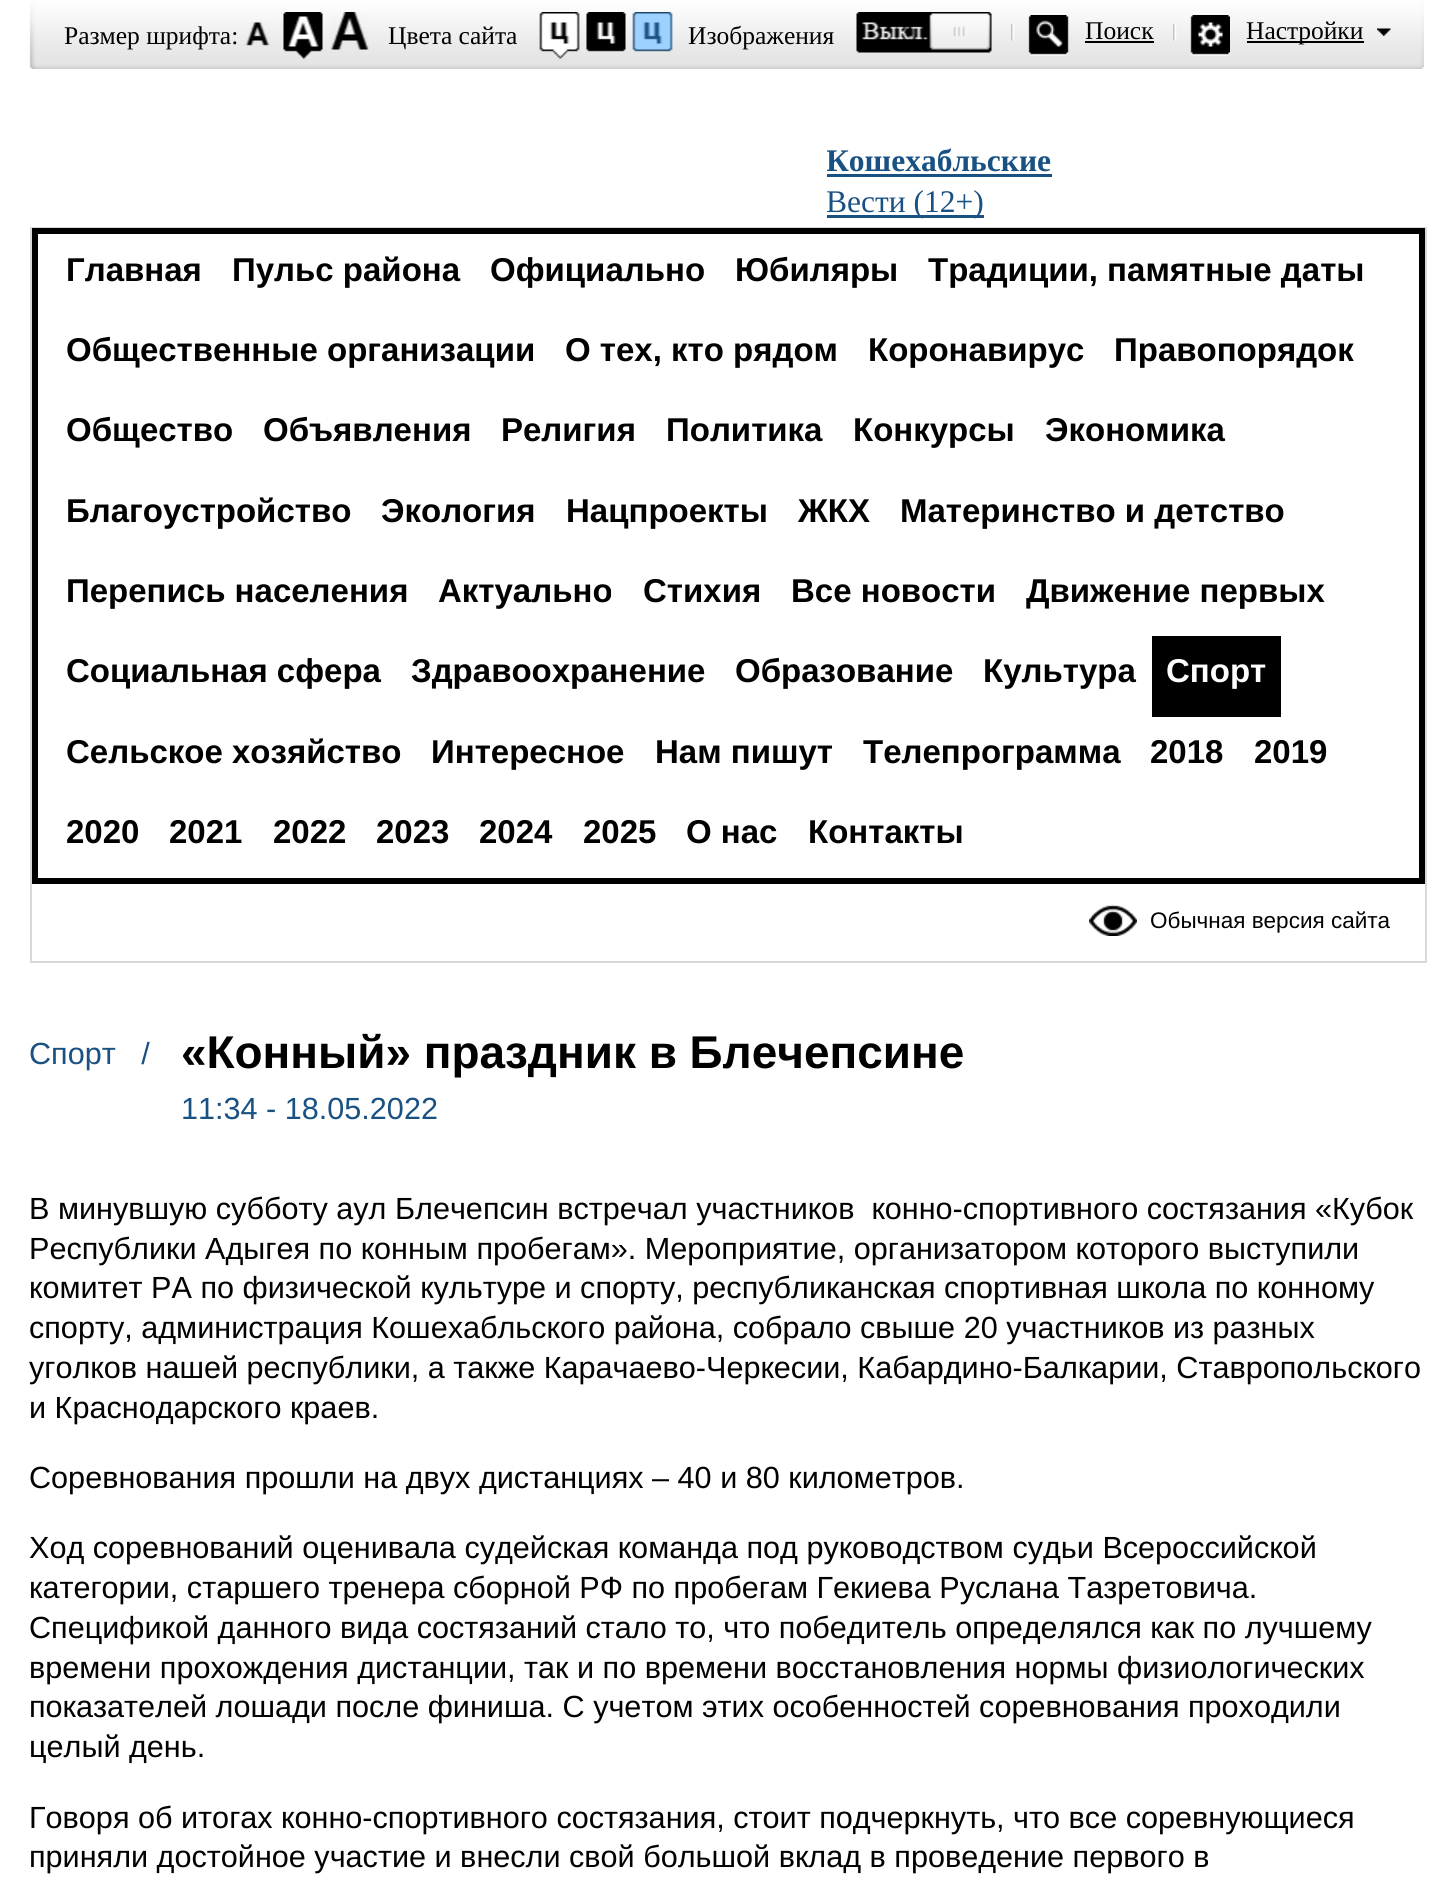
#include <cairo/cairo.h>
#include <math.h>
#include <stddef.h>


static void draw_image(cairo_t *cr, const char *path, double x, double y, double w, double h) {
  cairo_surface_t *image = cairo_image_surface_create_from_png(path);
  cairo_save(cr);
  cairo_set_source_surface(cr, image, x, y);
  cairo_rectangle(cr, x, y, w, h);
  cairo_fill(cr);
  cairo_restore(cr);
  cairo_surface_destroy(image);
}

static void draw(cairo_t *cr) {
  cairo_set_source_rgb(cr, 1, 1, 1);
  cairo_paint(cr);
  draw_image(cr, "images/1.png", 29, 1, 1395, 68);
  draw_image(cr, "images/2.png", 245, 22, 25, 24);
  draw_image(cr, "images/3.png", 283, 12, 40, 47);
  draw_image(cr, "images/4.png", 330, 12, 39, 38);
  draw_image(cr, "images/5.png", 539, 12, 41, 47);
  draw_image(cr, "images/6.png", 586, 12, 40, 40);
  draw_image(cr, "images/7.png", 632, 12, 41, 40);
  draw_image(cr, "images/8.png", 856, 12, 136, 41);
  draw_image(cr, "images/9.png", 1011, 15, 58, 41);
  cairo_set_source_rgb(cr, 0, 0, 0);
  cairo_rectangle(cr, 1085, 41, 69, 2);
  cairo_fill(cr);
  draw_image(cr, "images/10.png", 1173, 15, 57, 41);
  cairo_rectangle(cr, 1247, 41, 117, 2);
  cairo_fill(cr);
  draw_image(cr, "images/11.png", 1377, 28, 14, 8);
  cairo_set_source_rgb(cr, 25 / 255.0, 81 / 255.0, 131 / 255.0);
  cairo_rectangle(cr, 827, 174, 225, 3);
  cairo_fill(cr);
  cairo_rectangle(cr, 827, 215, 157, 3);
  cairo_fill(cr);
  cairo_rectangle(cr, 31, 228, 1395, 734);
  cairo_set_source_rgb(cr, 216 / 255.0, 216 / 255.0, 216 / 255.0);
  cairo_stroke(cr);
  cairo_rectangle(cr, 35, 231, 1387, 650);
  cairo_set_source_rgb(cr, 0, 0, 0);
  cairo_set_line_width(cr, 6);
  cairo_stroke(cr);
  cairo_rectangle(cr, 1152, 636, 129, 81);
  cairo_fill(cr);
  draw_image(cr, "images/12.png", 1089, 904, 48, 32);
  cairo_select_font_face(cr, "Liberation Serif", CAIRO_FONT_SLANT_NORMAL, CAIRO_FONT_WEIGHT_NORMAL);
  cairo_set_font_size(cr, 25.5);
  cairo_move_to(cr, 64, 44);
  cairo_show_text(cr, "Размер шрифта:");
  cairo_move_to(cr, 388, 44);
  cairo_show_text(cr, "Цвета сайта");
  cairo_move_to(cr, 688, 44);
  cairo_show_text(cr, "Изображения");
  cairo_move_to(cr, 1085, 39);
  cairo_show_text(cr, "Поиск");
  cairo_move_to(cr, 1246, 39);
  cairo_show_text(cr, "Настройки");
  cairo_save(cr);
  cairo_rectangle(cr, 827, 141, 562, 86);
  cairo_clip(cr);
  cairo_select_font_face(cr, "Liberation Serif", CAIRO_FONT_SLANT_NORMAL, CAIRO_FONT_WEIGHT_BOLD);
  cairo_set_font_size(cr, 31.5);
  cairo_set_source_rgb(cr, 25 / 255.0, 81 / 255.0, 131 / 255.0);
  cairo_move_to(cr, 826, 171);
  cairo_show_text(cr, "Кошехабльские");
  cairo_select_font_face(cr, "Liberation Serif", CAIRO_FONT_SLANT_NORMAL, CAIRO_FONT_WEIGHT_NORMAL);
  cairo_move_to(cr, 826, 212);
  cairo_show_text(cr, "Вести (12+)");
  cairo_restore(cr);
  cairo_select_font_face(cr, "Liberation Sans", CAIRO_FONT_SLANT_NORMAL, CAIRO_FONT_WEIGHT_BOLD);
  cairo_set_font_size(cr, 33);
  cairo_move_to(cr, 66, 281);
  cairo_show_text(cr, "Главная");
  cairo_move_to(cr, 232, 281);
  cairo_show_text(cr, "Пульс района");
  cairo_move_to(cr, 490, 281);
  cairo_show_text(cr, "Официально");
  cairo_move_to(cr, 735, 281);
  cairo_show_text(cr, "Юбиляры");
  cairo_move_to(cr, 928, 281);
  cairo_show_text(cr, "Традиции, памятные даты");
  cairo_move_to(cr, 66, 361);
  cairo_show_text(cr, "Общественные организации");
  cairo_move_to(cr, 565, 361);
  cairo_show_text(cr, "О тех, кто рядом");
  cairo_move_to(cr, 868, 361);
  cairo_show_text(cr, "Коронавирус");
  cairo_move_to(cr, 1114, 361);
  cairo_show_text(cr, "Правопорядок");
  cairo_move_to(cr, 66, 441);
  cairo_show_text(cr, "Общество");
  cairo_move_to(cr, 263, 441);
  cairo_show_text(cr, "Объявления");
  cairo_move_to(cr, 501, 441);
  cairo_show_text(cr, "Религия");
  cairo_move_to(cr, 666, 441);
  cairo_show_text(cr, "Политика");
  cairo_move_to(cr, 853, 441);
  cairo_show_text(cr, "Конкурсы");
  cairo_move_to(cr, 1045, 441);
  cairo_show_text(cr, "Экономика");
  cairo_move_to(cr, 66, 522);
  cairo_show_text(cr, "Благоустройство");
  cairo_move_to(cr, 381, 522);
  cairo_show_text(cr, "Экология");
  cairo_move_to(cr, 566, 522);
  cairo_show_text(cr, "Нацпроекты");
  cairo_move_to(cr, 798, 522);
  cairo_show_text(cr, "ЖКХ");
  cairo_move_to(cr, 900, 522);
  cairo_show_text(cr, "Материнство и детство");
  cairo_move_to(cr, 66, 602);
  cairo_show_text(cr, "Перепись населения");
  cairo_move_to(cr, 438, 602);
  cairo_show_text(cr, "Актуально");
  cairo_move_to(cr, 643, 602);
  cairo_show_text(cr, "Стихия");
  cairo_move_to(cr, 791, 602);
  cairo_show_text(cr, "Все новости");
  cairo_move_to(cr, 1026, 602);
  cairo_show_text(cr, "Движение первых");
  cairo_move_to(cr, 66, 682);
  cairo_show_text(cr, "Социальная сфера");
  cairo_move_to(cr, 411, 682);
  cairo_show_text(cr, "Здравоохранение");
  cairo_move_to(cr, 735, 682);
  cairo_show_text(cr, "Образование");
  cairo_move_to(cr, 983, 682);
  cairo_show_text(cr, "Культура");
  cairo_set_source_rgb(cr, 1, 1, 1);
  cairo_move_to(cr, 1166, 682);
  cairo_show_text(cr, "Спорт");
  cairo_set_source_rgb(cr, 0, 0, 0);
  cairo_move_to(cr, 66, 763);
  cairo_show_text(cr, "Сельское хозяйство");
  cairo_move_to(cr, 431, 763);
  cairo_show_text(cr, "Интересное");
  cairo_move_to(cr, 655, 763);
  cairo_show_text(cr, "Нам пишут");
  cairo_move_to(cr, 863, 763);
  cairo_show_text(cr, "Телепрограмма");
  cairo_move_to(cr, 1150, 763);
  cairo_show_text(cr, "2018");
  cairo_move_to(cr, 1254, 763);
  cairo_show_text(cr, "2019");
  cairo_move_to(cr, 66, 843);
  cairo_show_text(cr, "2020");
  cairo_move_to(cr, 169, 843);
  cairo_show_text(cr, "2021");
  cairo_move_to(cr, 273, 843);
  cairo_show_text(cr, "2022");
  cairo_move_to(cr, 376, 843);
  cairo_show_text(cr, "2023");
  cairo_move_to(cr, 479, 843);
  cairo_show_text(cr, "2024");
  cairo_move_to(cr, 583, 843);
  cairo_show_text(cr, "2025");
  cairo_move_to(cr, 686, 843);
  cairo_show_text(cr, "О нас");
  cairo_move_to(cr, 808, 843);
  cairo_show_text(cr, "Контакты");
  cairo_select_font_face(cr, "Liberation Sans", CAIRO_FONT_SLANT_NORMAL, CAIRO_FONT_WEIGHT_NORMAL);
  cairo_set_font_size(cr, 22.5);
  cairo_move_to(cr, 1150, 928);
  cairo_show_text(cr, "Обычная версия сайта");
  cairo_set_font_size(cr, 30.6);
  cairo_set_source_rgb(cr, 25 / 255.0, 81 / 255.0, 131 / 255.0);
  cairo_move_to(cr, 29, 1064);
  cairo_show_text(cr, "Спорт   /");
  cairo_select_font_face(cr, "Liberation Sans", CAIRO_FONT_SLANT_NORMAL, CAIRO_FONT_WEIGHT_BOLD);
  cairo_set_font_size(cr, 45.9);
  cairo_set_source_rgb(cr, 0, 0, 0);
  cairo_move_to(cr, 181, 1068);
  cairo_show_text(cr, "«Конный» праздник в Блечепсине");
  cairo_select_font_face(cr, "Liberation Sans", CAIRO_FONT_SLANT_NORMAL, CAIRO_FONT_WEIGHT_NORMAL);
  cairo_set_font_size(cr, 30.6);
  cairo_set_source_rgb(cr, 25 / 255.0, 81 / 255.0, 131 / 255.0);
  cairo_move_to(cr, 181, 1119);
  cairo_show_text(cr, "11:34 - 18.05.2022");
  cairo_set_source_rgb(cr, 0, 0, 0);
  cairo_move_to(cr, 29, 1219);
  cairo_show_text(cr, "В минувшую субботу аул Блечепсин встречал участников  конно-спортивного состязания «Кубок");
  cairo_move_to(cr, 29, 1259);
  cairo_show_text(cr, "Республики Адыгея по конным пробегам». Мероприятие, организатором которого выступили");
  cairo_move_to(cr, 29, 1298);
  cairo_show_text(cr, "комитет РА по физической культуре и спорту, республиканская спортивная школа по конному");
  cairo_move_to(cr, 29, 1338);
  cairo_show_text(cr, "спорту, администрация Кошехабльского района, собрало свыше 20 участников из разных");
  cairo_move_to(cr, 29, 1378);
  cairo_show_text(cr, "уголков нашей республики, а также Карачаево-Черкесии, Кабардино-Балкарии, Ставропольского");
  cairo_move_to(cr, 29, 1418);
  cairo_show_text(cr, "и Краснодарского краев.");
  cairo_move_to(cr, 29, 1488);
  cairo_show_text(cr, "Соревнования прошли на двух дистанциях – 40 и 80 километров.");
  cairo_move_to(cr, 29, 1558);
  cairo_show_text(cr, "Ход соревнований оценивала судейская команда под руководством судьи Всероссийской");
  cairo_move_to(cr, 29, 1598);
  cairo_show_text(cr, "категории, старшего тренера сборной РФ по пробегам Гекиева Руслана Тазретовича.");
  cairo_move_to(cr, 29, 1638);
  cairo_show_text(cr, "Спецификой данного вида состязаний стало то, что победитель определялся как по лучшему");
  cairo_move_to(cr, 29, 1678);
  cairo_show_text(cr, "времени прохождения дистанции, так и по времени восстановления нормы физиологических");
  cairo_move_to(cr, 29, 1717);
  cairo_show_text(cr, "показателей лошади после финиша. С учетом этих особенностей соревнования проходили");
  cairo_move_to(cr, 29, 1757);
  cairo_show_text(cr, "целый день.");
  cairo_move_to(cr, 29, 1828);
  cairo_show_text(cr, "Говоря об итогах конно-спортивного состязания, стоит подчеркнуть, что все соревнующиеся");
  cairo_move_to(cr, 29, 1867);
  cairo_show_text(cr, "приняли достойное участие и внесли свой большой вклад в проведение первого в");
}

int main(void) {
  cairo_surface_t *surface = cairo_image_surface_create(CAIRO_FORMAT_RGB24, 1451, 1887);
  cairo_t *cr = cairo_create(surface);
  cairo_font_options_t *options = cairo_font_options_create();
  cairo_font_options_set_hint_metrics(options, CAIRO_HINT_METRICS_OFF);
  cairo_font_options_set_hint_style(options, CAIRO_HINT_STYLE_NONE);
  cairo_set_font_options(cr, options);
  cairo_set_miter_limit(cr, 4);
  draw(cr);
  cairo_surface_write_to_png(surface, "out.png");
  cairo_font_options_destroy(options);
  cairo_destroy(cr);
  cairo_surface_destroy(surface);
  return 0;
}
